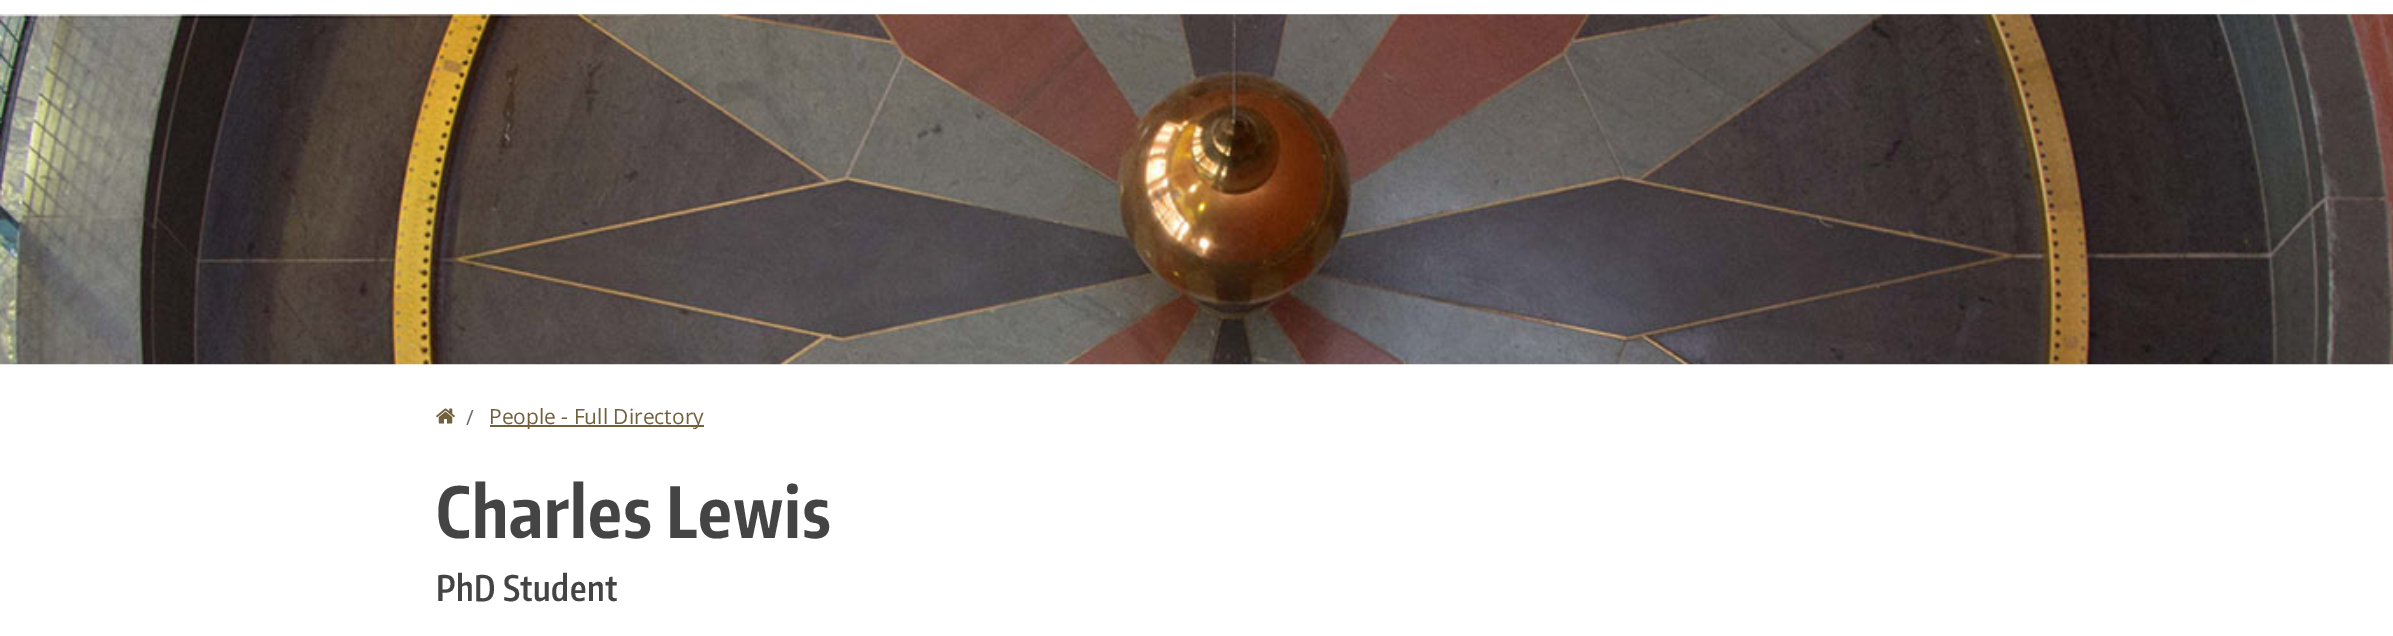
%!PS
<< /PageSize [2393 636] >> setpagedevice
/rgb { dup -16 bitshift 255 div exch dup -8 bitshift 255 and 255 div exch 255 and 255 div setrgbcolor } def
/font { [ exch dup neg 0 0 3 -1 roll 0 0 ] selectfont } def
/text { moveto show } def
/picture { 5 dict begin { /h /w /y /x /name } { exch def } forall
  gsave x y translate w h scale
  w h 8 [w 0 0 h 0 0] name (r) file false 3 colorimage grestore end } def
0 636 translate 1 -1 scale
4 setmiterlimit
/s1 { /OpenSans-Regular 21 font 16#6B6B6B rgb } def
/s2 { /OpenSans-Regular 21 font 16#71623D rgb } def
16#FFFFFF rgb
0 0 2393 636 rectfill
(pic1.raw) 0 14 2393 351 picture
(pic2.raw) 436 408 19 16 picture
s1
(/) 466 425 text
16#71623D rgb
490 425 214 2 rectfill
(People - Full Directory) 489 424 text
/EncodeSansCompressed-Bold 70 font
16#444444 rgb
436 538 moveto 0.9 0 (Charles Lewis) ashow
/EncodeSansCompressed-SemiBold 35 font
436 601 moveto 0.5 0 (PhD Student) ashow
showpage
